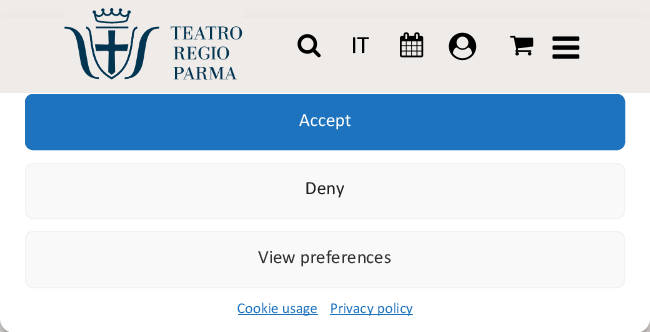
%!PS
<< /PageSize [650 332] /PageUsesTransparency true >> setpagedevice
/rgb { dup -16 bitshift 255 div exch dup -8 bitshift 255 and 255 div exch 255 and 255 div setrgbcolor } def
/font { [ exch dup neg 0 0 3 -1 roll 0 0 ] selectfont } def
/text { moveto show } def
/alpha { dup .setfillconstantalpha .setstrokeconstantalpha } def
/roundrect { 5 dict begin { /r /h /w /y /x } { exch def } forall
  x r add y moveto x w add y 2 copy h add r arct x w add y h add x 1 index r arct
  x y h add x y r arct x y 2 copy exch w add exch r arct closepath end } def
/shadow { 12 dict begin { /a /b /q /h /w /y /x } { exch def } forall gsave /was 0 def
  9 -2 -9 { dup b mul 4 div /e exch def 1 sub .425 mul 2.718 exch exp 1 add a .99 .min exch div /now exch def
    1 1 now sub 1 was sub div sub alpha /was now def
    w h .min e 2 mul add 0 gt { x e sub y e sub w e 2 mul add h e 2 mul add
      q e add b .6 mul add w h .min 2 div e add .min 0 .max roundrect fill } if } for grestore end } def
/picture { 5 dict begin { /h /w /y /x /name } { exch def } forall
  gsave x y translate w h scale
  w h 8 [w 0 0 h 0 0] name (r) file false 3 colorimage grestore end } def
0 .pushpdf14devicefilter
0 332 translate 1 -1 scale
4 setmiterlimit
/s1 { /Calibri-Regular 25 font 16#000000 rgb } def
/s2 { /Calibri-Regular 18.75 font 16#FFFFFF rgb } def
/s3 { /Calibri-Regular 18.75 font 16#222222 rgb } def
/s4 { /Calibri-Regular 18.75 font 16#333333 rgb } def
/s5 { /Calibri-Regular 15 font 16#1E73BE rgb } def
16#EFEBE8 rgb
0 0 650 332 rectfill
16#000000 rgb
0 33 650 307 15 4 0.23 shadow
0 38 650 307 15 12.5 0.19 shadow
16#FFFFFF rgb
0 25 650 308 15 roundrect fill
16#EFEBE8 rgb
0 18 650 75 rectfill
(pic1.raw) 64 8 179 72 picture
(pic2.raw) 297 34 24 24 picture
s1
(IT) 351 53 text
(pic3.raw) 400 32 24 26 picture
(pic4.raw) 448 32 29 29 picture
(pic5.raw) 510 35 24 21 picture
(pic6.raw) 552 36 28 23 picture
16#1E73BE rgb
25.5 94.5 599 55 7.5 roundrect gsave fill grestore
stroke
s2
(Accept) 299 126 text
16#F9F9F9 rgb
25.5 163.5 599 55 7.5 roundrect gsave fill grestore
16#F2F2F2 rgb
stroke
s3
(Deny) 305 194 text
16#F9F9F9 rgb
25.5 231.5 599 56 7.5 roundrect gsave fill grestore
16#F2F2F2 rgb
stroke
s4
(View preferences) 258 263 text
16#1E73BE rgb
238 314 80 1 rectfill
s5
(Cookie usage) 237 313 text
330 314 83 1 rectfill
(Privacy policy) 330 313 text
.poppdf14devicefilter showpage
